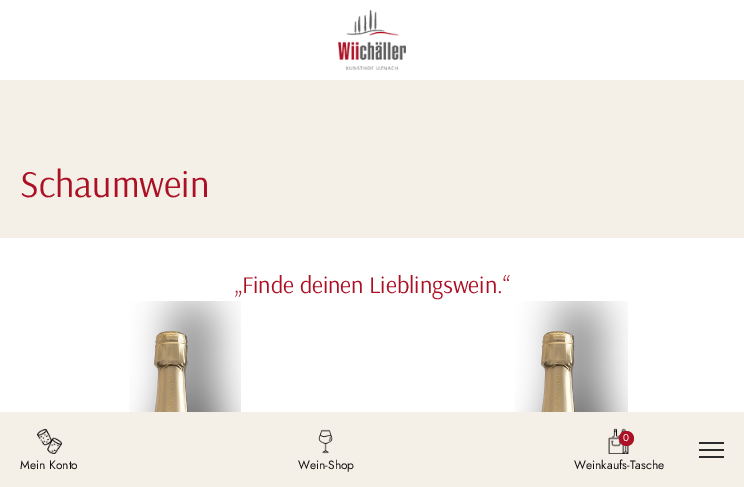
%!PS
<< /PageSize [744 487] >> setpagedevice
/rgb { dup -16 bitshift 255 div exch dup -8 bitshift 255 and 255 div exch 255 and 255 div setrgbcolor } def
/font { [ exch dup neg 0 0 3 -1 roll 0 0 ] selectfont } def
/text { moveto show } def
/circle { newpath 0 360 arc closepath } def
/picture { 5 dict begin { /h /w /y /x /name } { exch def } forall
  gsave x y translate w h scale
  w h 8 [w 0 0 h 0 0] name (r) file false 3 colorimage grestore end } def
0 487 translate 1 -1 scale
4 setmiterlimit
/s1 { /Arsenal-Regular 38 font 16#AC1024 rgb } def
/s2 { /Arsenal-Regular 24 font 16#AC1024 rgb } def
/s3 { /Jost-Regular 10 font 16#FFFFFF rgb } def
/s4 { /Jost-Regular 12 font 16#121212 rgb } def
16#FFFFFF rgb
0 0 744 487 rectfill
(pic1.raw) 338 10 68 60 picture
16#F4EFE7 rgb
0 80 744 158 rectfill
s1
(Schaumwein) 20 197 text
s2
(„Finde deinen Lieblingswein.“) 235 293 text
(pic2.raw) 129 301 112 111 picture
(pic3.raw) 515 301 113 111 picture
16#F4EFE7 rgb
0 412 744 75 rectfill
(pic4.raw) 608 428 21 26 picture
16#AC1024 rgb
626.5 438.5 7.5 circle fill
s3
(0) 623 441 text
s4
(Weinkaufs-Tasche) 574 469 text
16#2B2B2B rgb
699 442 25 2 rectfill
699 449 25 2 rectfill
699 456 25 2 rectfill
(pic5.raw) 37 429 25 25 picture
s4
(Mein Konto) 20 469 text
(pic6.raw) 318 429 15 25 picture
(Wein-Shop) 298 469 text
showpage
